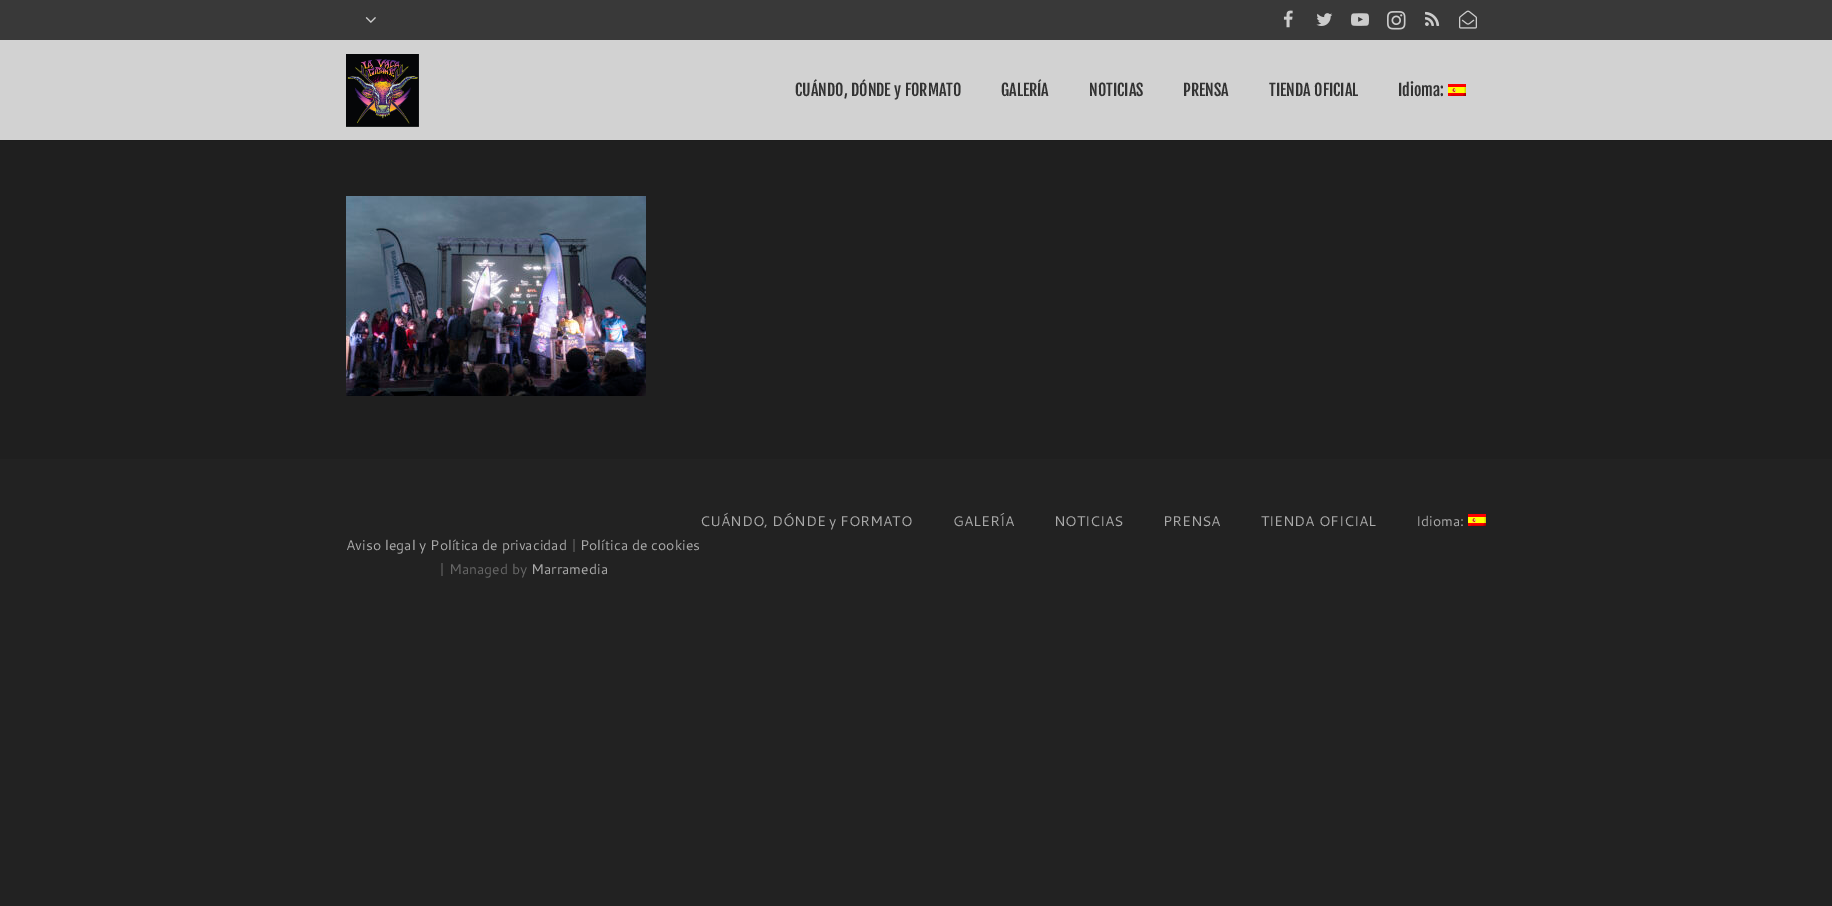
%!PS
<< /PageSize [1832 906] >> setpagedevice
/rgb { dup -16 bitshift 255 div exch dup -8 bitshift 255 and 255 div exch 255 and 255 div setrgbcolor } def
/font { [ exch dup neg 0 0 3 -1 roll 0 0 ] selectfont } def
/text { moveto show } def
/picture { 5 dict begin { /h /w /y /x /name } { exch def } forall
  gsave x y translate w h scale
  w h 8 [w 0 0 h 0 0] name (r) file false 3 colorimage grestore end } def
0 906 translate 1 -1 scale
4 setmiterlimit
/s1 { /FjallaOne-Regular 16 font 16#333333 rgb } def
/s2 { /Cantarell-Regular 14 font 16#AAAAAA rgb } def
/s3 { /Cantarell-Regular 14 font 16#666666 rgb } def
16#222222 rgb
0 0 1832 906 rectfill
16#1F1F1F rgb
0 141 1832 318 rectfill
16#393939 rgb
0 0 1832 40 rectfill
(pic1.raw) 365 17 11 6 picture
(pic2.raw) 1283 10 10 18 picture
(pic3.raw) 1316 13 17 13 picture
(pic4.raw) 1351 13 18 13 picture
(pic5.raw) 1387 11 19 19 picture
(pic6.raw) 1425 11 15 15 picture
(pic7.raw) 1459 10 18 19 picture
16#1D1D1D rgb
0 140 1832 1 rectfill
16#D2D2D2 rgb
0 40 1832 100 rectfill
(pic8.raw) 346 54 73 73 picture
s1
(CUÁNDO, DÓNDE y FORMATO) 795 96 text
(GALERÍA) 1001 96 text
(NOTICIAS) 1089 96 text
(PRENSA) 1183 96 text
(TIENDA OFICIAL) 1269 96 text
(Idioma:) 1398 96 text
(pic9.raw) 1448 84 18 12 picture
(pic10.raw) 346 196 300 200 picture
s2
(CUÁNDO, DÓNDE y FORMATO) 700 526 text
(GALERÍA) 953 526 text
(NOTICIAS) 1054 526 text
(PRENSA) 1163 526 text
(TIENDA OFICIAL) 1261 526 text
(Idioma:) 1416 526 text
(pic9.raw) 1468 514 18 12 picture
(Aviso legal y Política de privacidad) 346 550 text
s3
(|) 571 550 text
s2
(Política de cookies) 580 550 text
s3
(| Managed by) 439 574 text
s2
(Marramedia) 531 574 text
showpage
